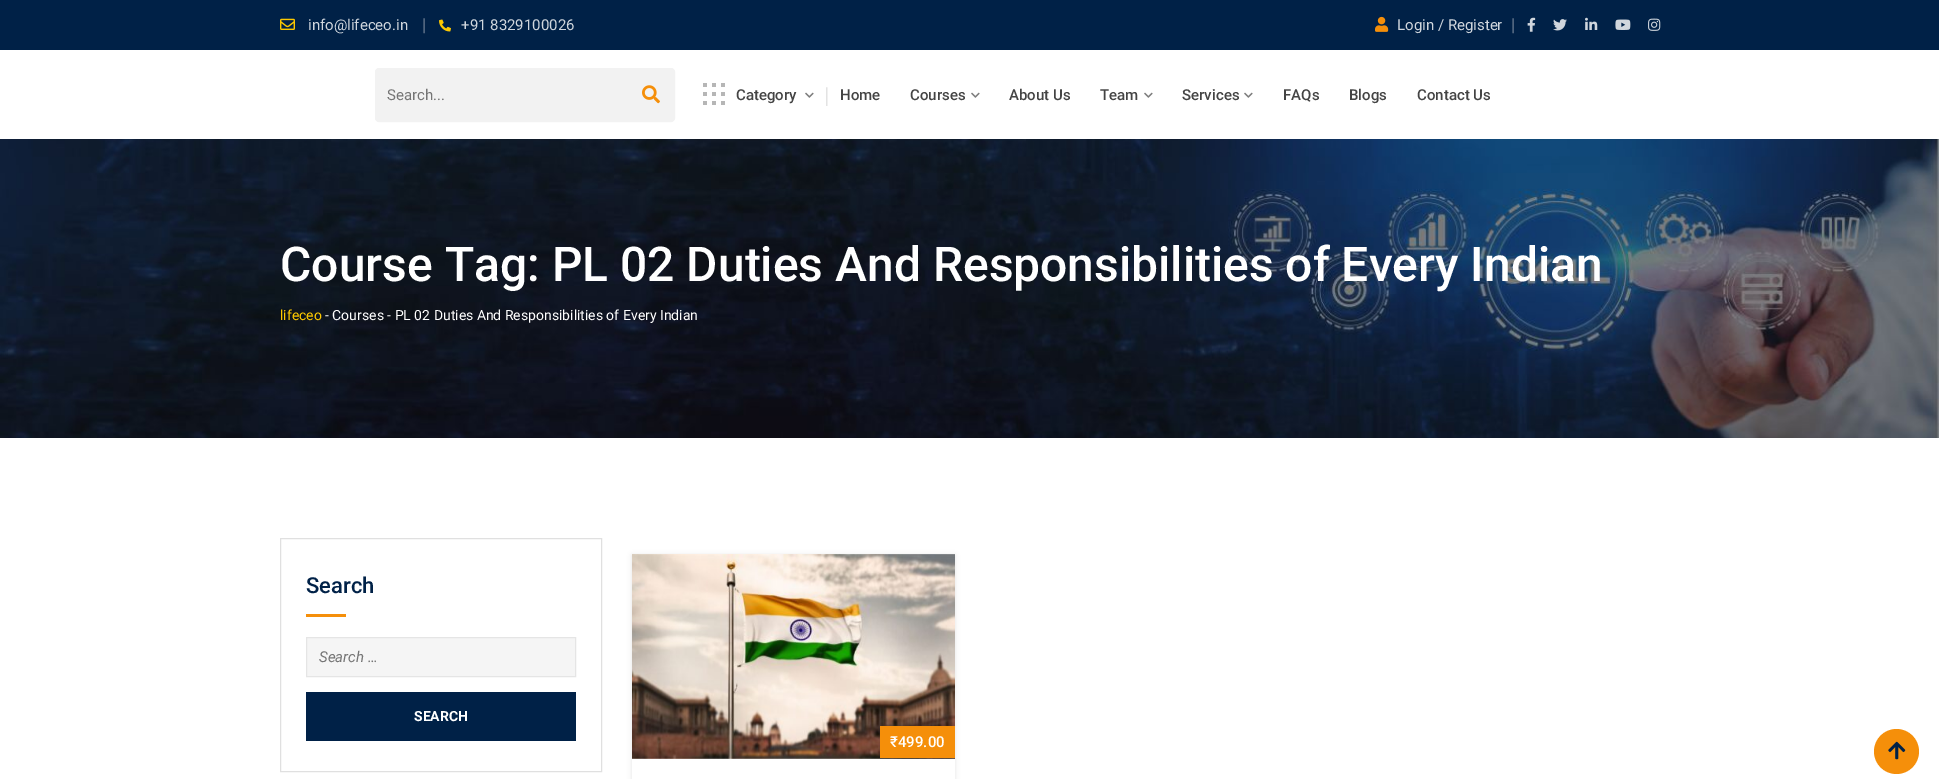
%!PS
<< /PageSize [1939 779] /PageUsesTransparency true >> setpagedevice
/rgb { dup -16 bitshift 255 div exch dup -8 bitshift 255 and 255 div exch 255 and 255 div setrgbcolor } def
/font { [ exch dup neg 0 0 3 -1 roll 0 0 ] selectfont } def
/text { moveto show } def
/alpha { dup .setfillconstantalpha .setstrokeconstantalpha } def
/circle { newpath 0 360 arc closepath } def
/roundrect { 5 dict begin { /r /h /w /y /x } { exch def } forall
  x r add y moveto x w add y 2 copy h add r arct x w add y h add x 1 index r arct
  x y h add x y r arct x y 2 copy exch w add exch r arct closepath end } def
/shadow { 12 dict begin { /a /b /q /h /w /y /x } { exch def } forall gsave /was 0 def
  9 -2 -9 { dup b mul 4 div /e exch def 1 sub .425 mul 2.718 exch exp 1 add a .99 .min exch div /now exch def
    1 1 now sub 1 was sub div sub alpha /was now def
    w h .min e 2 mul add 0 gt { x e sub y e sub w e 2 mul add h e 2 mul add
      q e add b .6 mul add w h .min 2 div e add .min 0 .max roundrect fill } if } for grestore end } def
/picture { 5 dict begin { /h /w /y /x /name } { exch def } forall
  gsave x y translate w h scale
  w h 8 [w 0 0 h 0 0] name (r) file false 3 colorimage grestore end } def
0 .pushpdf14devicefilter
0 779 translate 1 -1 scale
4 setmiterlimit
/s1 { /Roboto-Regular 15 font 16#D0D6DD rgb } def
/s2 { /Roboto-Regular 15 font 16#757575 rgb } def
/s3 { /Roboto-Medium 15 font 16#444444 rgb } def
/s4 { /Roboto-Medium 48 font 16#FFFFFF rgb } def
/s5 { /Roboto-Regular 14 font 16#FDC800 rgb } def
/s6 { /Roboto-Regular 14 font 16#FFFFFF rgb } def
/s7 { /Roboto-Medium 22 font 16#002147 rgb } def
/s8 { /Roboto-Italic 15 font 16#757575 rgb } def
/s9 { /Roboto-Bold 14 font 16#FFFFFF rgb } def
/s10 { /Roboto-Medium 15 font 16#FFFFFF rgb } def
16#FFFFFF rgb
0 0 1939 779 rectfill
16#002147 rgb
0 0 1939 50 rectfill
(pic1.raw) 280 18 15 12 picture
s1
(info@lifeceo.in) 308 30 text
/Roboto-Regular 18 font
16#6C7D92 rgb
422 31 moveto -1 0 (|) ashow
(pic2.raw) 439 19 12 13 picture
s1
(+91 8329100026) 461 30 text
(pic3.raw) 1375 16 14 16 picture
(Login / Register) 1397 30 text
/Roboto-Regular 18 font
16#6C7D92 rgb
1511 31 moveto -1 0 (|) ashow
(pic4.raw) 1527 17 9 15 picture
(pic5.raw) 1553 19 14 12 picture
(pic6.raw) 1585 17 13 13 picture
(pic7.raw) 1615 19 16 11 picture
(pic8.raw) 1648 18 13 13 picture
16#F2F2F2 rgb
375.5 68.5 299 53 3.5 roundrect gsave fill grestore
stroke
s2
(Search...) 387 100 text
(pic9.raw) 642 85 18 19 picture
(pic10.raw) 703 83 22 22 picture
s3
(Category) 736 100 text
(pic11.raw) 805 92 9 6 picture
/Roboto-Regular 22 font
16#E3E3E3 rgb
824 103 moveto -2 0 (|) ashow
s3
(Home) 840 100 text
(Courses) 910 100 text
(pic11.raw) 971 92 9 6 picture
(About Us) 1009 100 text
(Team) 1100 100 text
(pic11.raw) 1144 92 9 6 picture
(Services) 1182 100 text
(pic11.raw) 1244 92 9 6 picture
(FAQs) 1283 100 text
(Blogs) 1349 100 text
(Contact Us) 1417 100 text
(pic12.raw) 0 139 1939 299 picture
s4
(Course Tag: PL 02 Duties And Responsibilities of Every Indian) 280 281 text
s5
(lifeceo) 280 320 text
s6
(- Courses - PL 02 Duties And Responsibilities of Every Indian) 325 320 text
16#E0E0E0 rgb
280.5 538.5 321 233 rectstroke
s7
(Search) 306 593 text
16#F58F0A rgb
306 614 40 3 rectfill
16#F5F5F5 rgb
306.5 637.5 moveto 575.5 637.5 lineto 575.5 676.5 lineto 306.5 676.5 lineto closepath gsave fill grestore
16#E5E5E5 rgb
stroke
s8
(Search …) 319 662 text
16#002147 rgb
306 692 270 49 rectfill
s9
(SEARCH) 414 721 text
gsave
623 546 moveto 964 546 lineto 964 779 lineto 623 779 lineto closepath 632 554 moveto 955 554 lineto 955 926 lineto 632 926 lineto closepath eoclip newpath
16#000000 rgb
632 555 323 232 0 2.5 0.1 shadow
grestore
(pic13.raw) 632 554 323 205 picture
16#F58F0A rgb
880 726 75 32 rectfill
s10
(₹499.00) 890 747 text
16#F58F0A rgb
1896.5 751.5 22.5 circle fill
(pic14.raw) 1888 741 18 19 picture
.poppdf14devicefilter showpage
